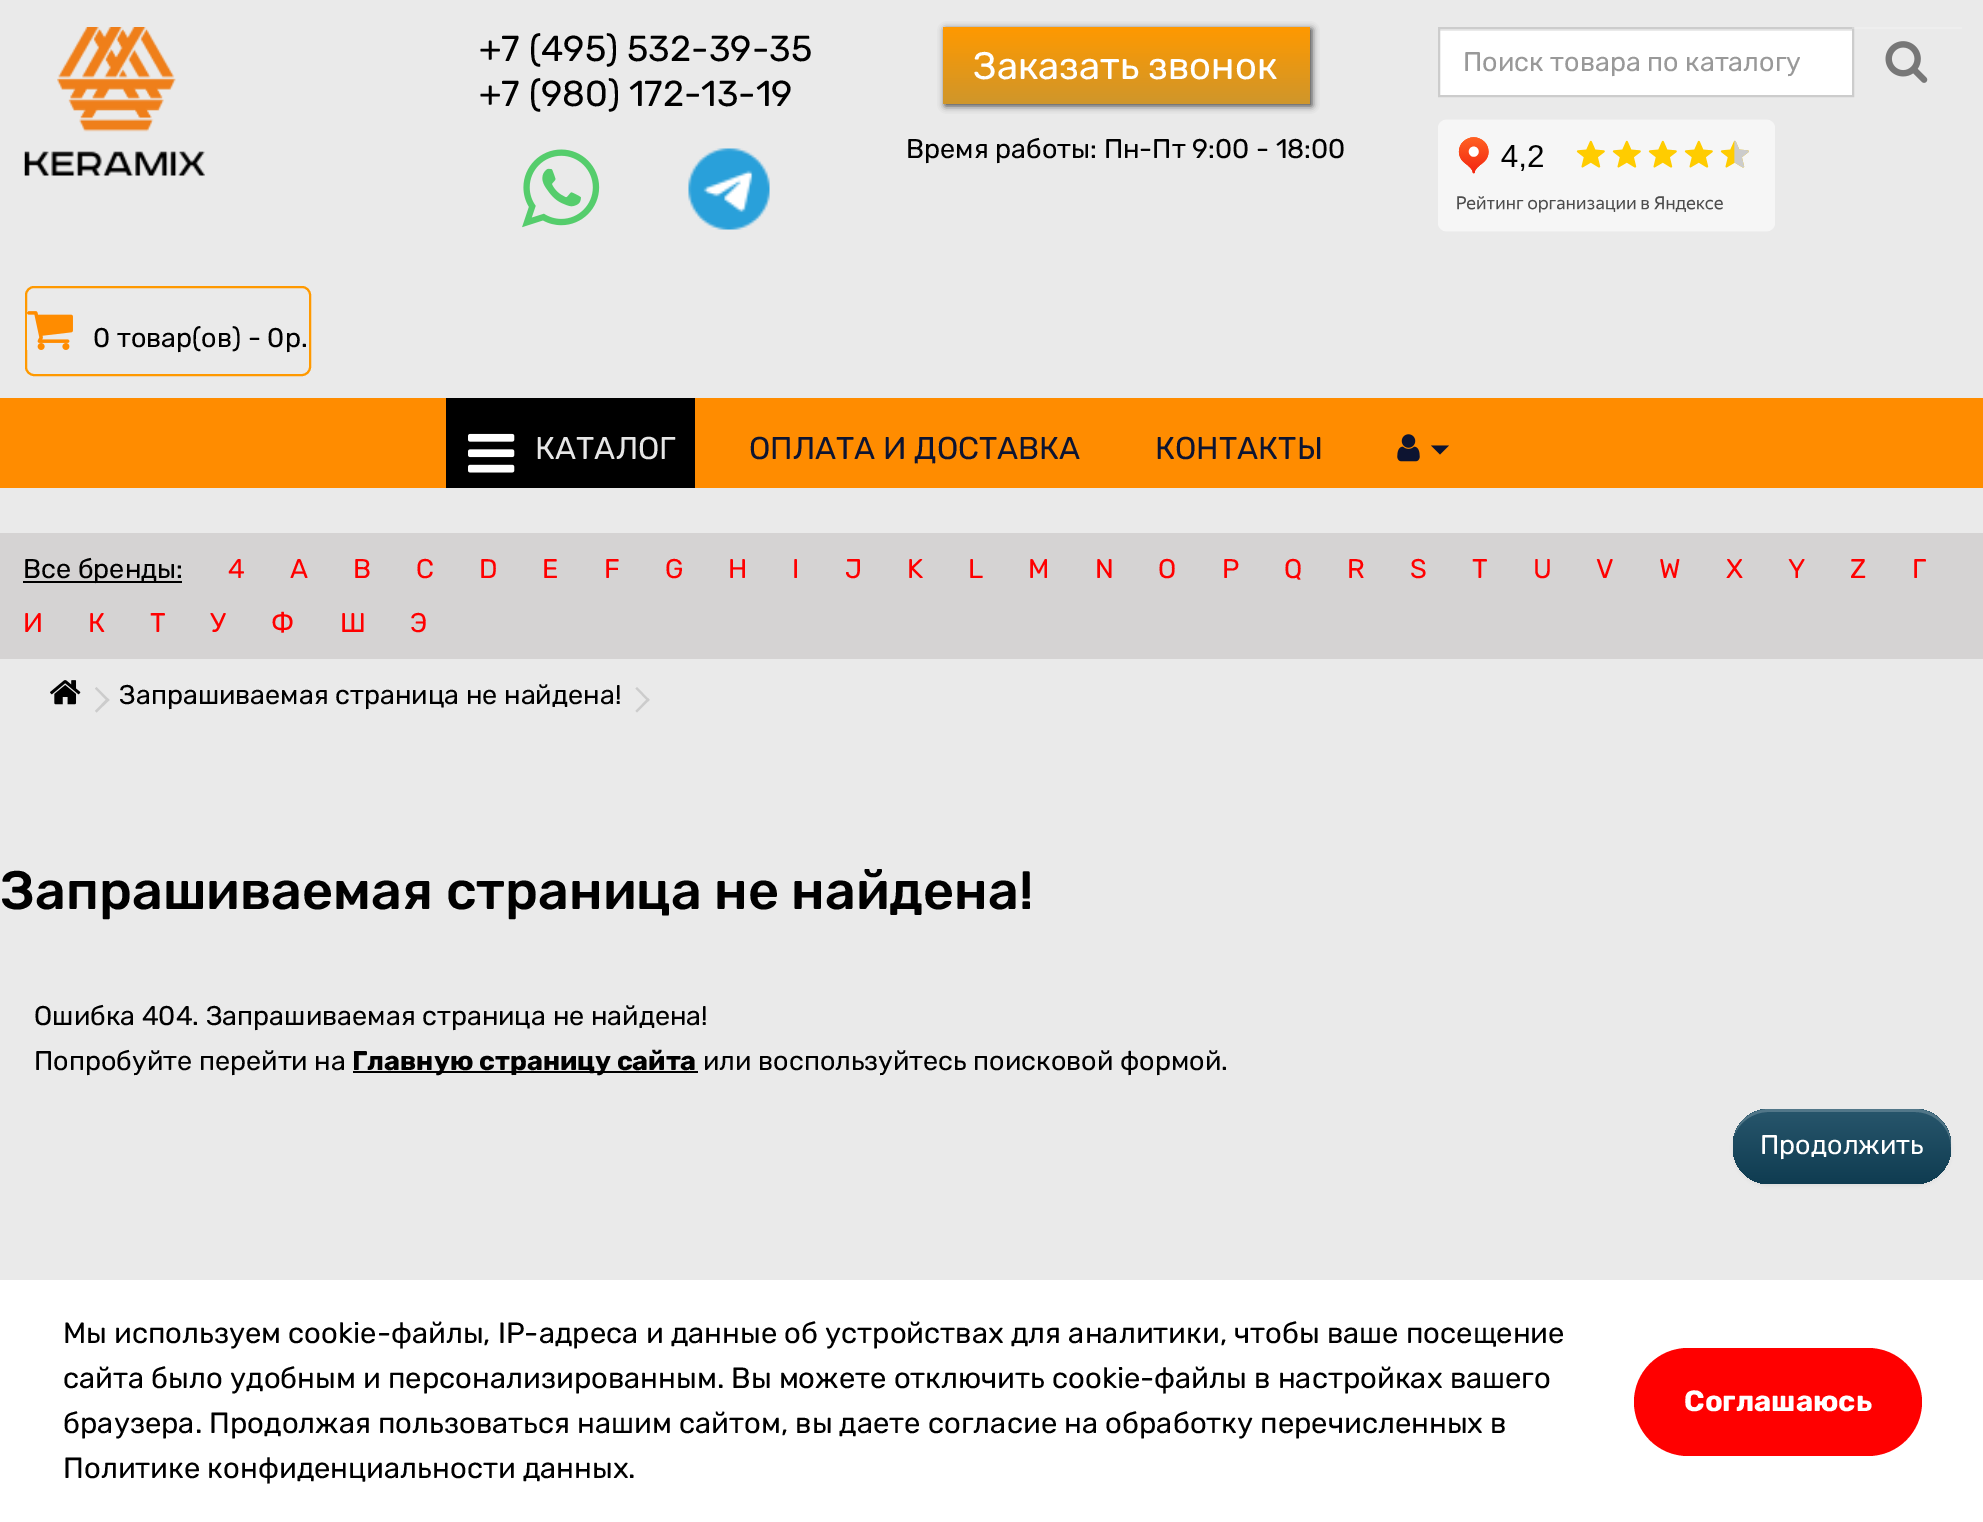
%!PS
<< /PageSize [1983 1522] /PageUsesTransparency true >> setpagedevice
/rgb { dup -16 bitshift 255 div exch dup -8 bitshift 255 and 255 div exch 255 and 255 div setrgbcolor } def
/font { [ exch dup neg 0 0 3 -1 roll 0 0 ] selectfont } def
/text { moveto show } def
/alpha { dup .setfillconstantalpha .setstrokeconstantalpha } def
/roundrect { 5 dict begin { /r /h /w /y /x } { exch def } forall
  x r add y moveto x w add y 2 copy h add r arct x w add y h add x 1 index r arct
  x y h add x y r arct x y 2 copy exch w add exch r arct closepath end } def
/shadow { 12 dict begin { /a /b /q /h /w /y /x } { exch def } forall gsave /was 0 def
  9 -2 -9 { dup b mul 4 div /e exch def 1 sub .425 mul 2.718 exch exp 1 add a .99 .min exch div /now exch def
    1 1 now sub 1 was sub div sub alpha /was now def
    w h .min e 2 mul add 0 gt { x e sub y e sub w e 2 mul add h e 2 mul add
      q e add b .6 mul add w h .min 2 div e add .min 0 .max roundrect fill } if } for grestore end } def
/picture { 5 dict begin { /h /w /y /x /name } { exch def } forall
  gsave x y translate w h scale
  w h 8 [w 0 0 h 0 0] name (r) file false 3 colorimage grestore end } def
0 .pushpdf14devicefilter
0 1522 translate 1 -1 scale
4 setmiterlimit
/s1 { /Rubik-Regular 36 font 16#000000 rgb } def
/s2 { /Rubik-Regular 38.25 font 16#FFFFFF rgb } def
/s3 { /Rubik-Regular 27 font 16#000000 rgb } def
/s4 { /Rubik-Regular 27 font 16#999999 rgb } def
/s5 { /Rubik-Regular 31.5 font 16#E6E6E6 rgb } def
/s6 { /Rubik-Regular 31.5 font 16#0D1431 rgb } def
/s7 { /Rubik-Regular 27 font 16#FF0000 rgb } def
/s8 { /Rubik-Medium 54 font 16#000000 rgb } def
/s9 { /Rubik-Bold 27 font 16#000000 rgb } def
/s10 { /Rubik-Regular 27 font 16#FFFFFF rgb } def
/s11 { /Rubik-Regular 29.25 font 16#000000 rgb } def
/s12 { /Rubik-Bold 29.25 font 16#FFFFFF rgb } def
16#EAEAEA rgb
0 0 1983 1522 rectfill
(pic1.raw) 24 27 181 149 picture
s1
(+7 \(495\) 532-39-35) 479 61 text
(+7 \(980\) 172-13-19) 479 106 text
(pic2.raw) 522 149 78 79 picture
(pic3.raw) 688 148 82 82 picture
16#444444 rgb
945 29 367 77 0 3.5 1 shadow
gsave 943 27 moveto 1310 27 lineto 1310 104 lineto 943 104 lineto closepath clip newpath
<< /ShadingType 2 /ColorSpace /DeviceRGB /Coords [1126 27 1126 104] /Extend [true true] /Function << /FunctionType 2 /Domain [0 1] /C0 [1 0.6 0] /C1 [0.812 0.588 0.169] /N 1 >> >> shfill grestore
s2
(Заказать звонок) 973 79 text
s3
(Время работы: Пн-Пт 9:00 - 18:00) 906 158 text
16#FFFFFF rgb
1440 31 412 64 rectfill
16#CCCCCC rgb
2 setlinewidth
1439 28 414 68 rectstroke
s4
(Поиск товара по каталогу) 1463 71 text
0.2 alpha
16#FFFFFF rgb
1852 27 110 2 rectfill
1 alpha
(pic4.raw) 1885 41 43 42 picture
(pic5.raw) 1438 119 337 113 picture
16#FF9900 rgb
26 287 284 88 8 roundrect stroke
(pic6.raw) 27 311 46 39 picture
s3
(0 товар\(ов\) - 0р.) 93 347 text
16#FF8C00 rgb
0 398 1983 90 rectfill
16#000000 rgb
446 398 249 90 rectfill
(pic7.raw) 468 433 47 40 picture
s5
(КАТАЛОГ) 535 459 text
s6
(ОПЛАТА И ДОСТАВКА) 749 459 text
(КОНТАКТЫ) 1155 459 text
(pic8.raw) 1397 434 23 28 picture
1431 445.5 moveto 1449 445.5 lineto 1440 454.5 lineto closepath fill
16#D5D3D3 rgb
0 533 1983 126 rectfill
16#000000 rgb
23 581 159 2 rectfill
s3
(Все бренды:) 23 578 text
s7
(4) 228 578 text
(A) 290 578 text
(B) 353 578 text
(C) 416 578 text
(D) 479 578 text
(E) 542 578 text
(F) 604 578 text
(G) 665 578 text
(H) 728 578 text
(I) 792 578 text
(J) 845 578 text
(K) 907 578 text
(L) 968 578 text
(M) 1028 578 text
(N) 1095 578 text
(O) 1158 578 text
(P) 1222 578 text
(Q) 1284 578 text
(R) 1347 578 text
(S) 1410 578 text
(T) 1472 578 text
(U) 1533 578 text
(V) 1596 578 text
(W) 1659 578 text
(X) 1726 578 text
(Y) 1788 578 text
(Z) 1850 578 text
(Г) 1912 578 text
(И) 23 632 text
(К) 88 632 text
(Т) 150 632 text
(У) 210 632 text
(Ф) 271 632 text
(Ш) 340 632 text
(Э) 410 632 text
(pic9.raw) 50 680 31 25 picture
16#CCCCCC rgb
95 688.5 moveto 96.5 687 lineto 109.5 700 lineto 107.5 701.5 lineto closepath fill
95 711 moveto 107.5 698 lineto 109.5 700 lineto 96.5 712.5 lineto closepath fill
s3
(Запрашиваемая страница не найдена!) 119 704 text
16#CCCCCC rgb
635.5 688.5 moveto 637 687 lineto 649.5 700 lineto 648 701.5 lineto closepath fill
635.5 711 moveto 648 698 lineto 649.5 700 lineto 637 712.5 lineto closepath fill
s8
(Запрашиваемая страница не найдена!) 0 909 text
s3
(Ошибка 404. Запрашиваемая страница не найдена!) 34 1025 text
(Попробуйте перейти на) 34 1070 text
353 1071 345 2 rectfill
s9
(Главную страницу сайта) 352 1070 text
s3
(или воспользуйтесь поисковой формой.) 703 1070 text
1733 1112 218 74 36 2 0.05 shadow
gsave 1733 1109 218 75 36 roundrect clip newpath
<< /ShadingType 2 /ColorSpace /DeviceRGB /Coords [1842 1109 1842 1184] /Extend [true true] /Function << /FunctionType 2 /Domain [0 1] /C0 [0.157 0.337 0.424] /C1 [0.059 0.235 0.318] /N 1 >> >> shfill grestore
0.2 alpha
16#FFFFFF rgb
1768 1112 moveto 1915 1112 lineto 1935 1112 1951 1128 1951 1148 curveto 1951 1145 lineto 1951 1125 1935 1109 1915 1109 curveto 1769 1109 lineto 1752 1109 1738 1120 1734 1136 curveto 1739 1122 1753 1112 1768 1112 curveto closepath fill
1 alpha
(Продолжить) 1760 1154 text
0 1280 1983 242 rectfill
s11
(Мы используем cookie-файлы, IP-адреса и данные об устройствах для аналитики, чтобы ваше посещение) 63 1343 text
(сайта было удобным и персонализированным. Вы можете отключить cookie-файлы в настройках вашего) 63 1388 text
(браузера. Продолжая пользоваться нашим сайтом, вы даете согласие на обработку перечисленных в) 63 1433 text
(Политике конфиденциальности данных.) 63 1478 text
16#FF0000 rgb
1634 1348 288 108 54 roundrect fill
s12
(Соглашаюсь) 1684 1411 text
.poppdf14devicefilter showpage
